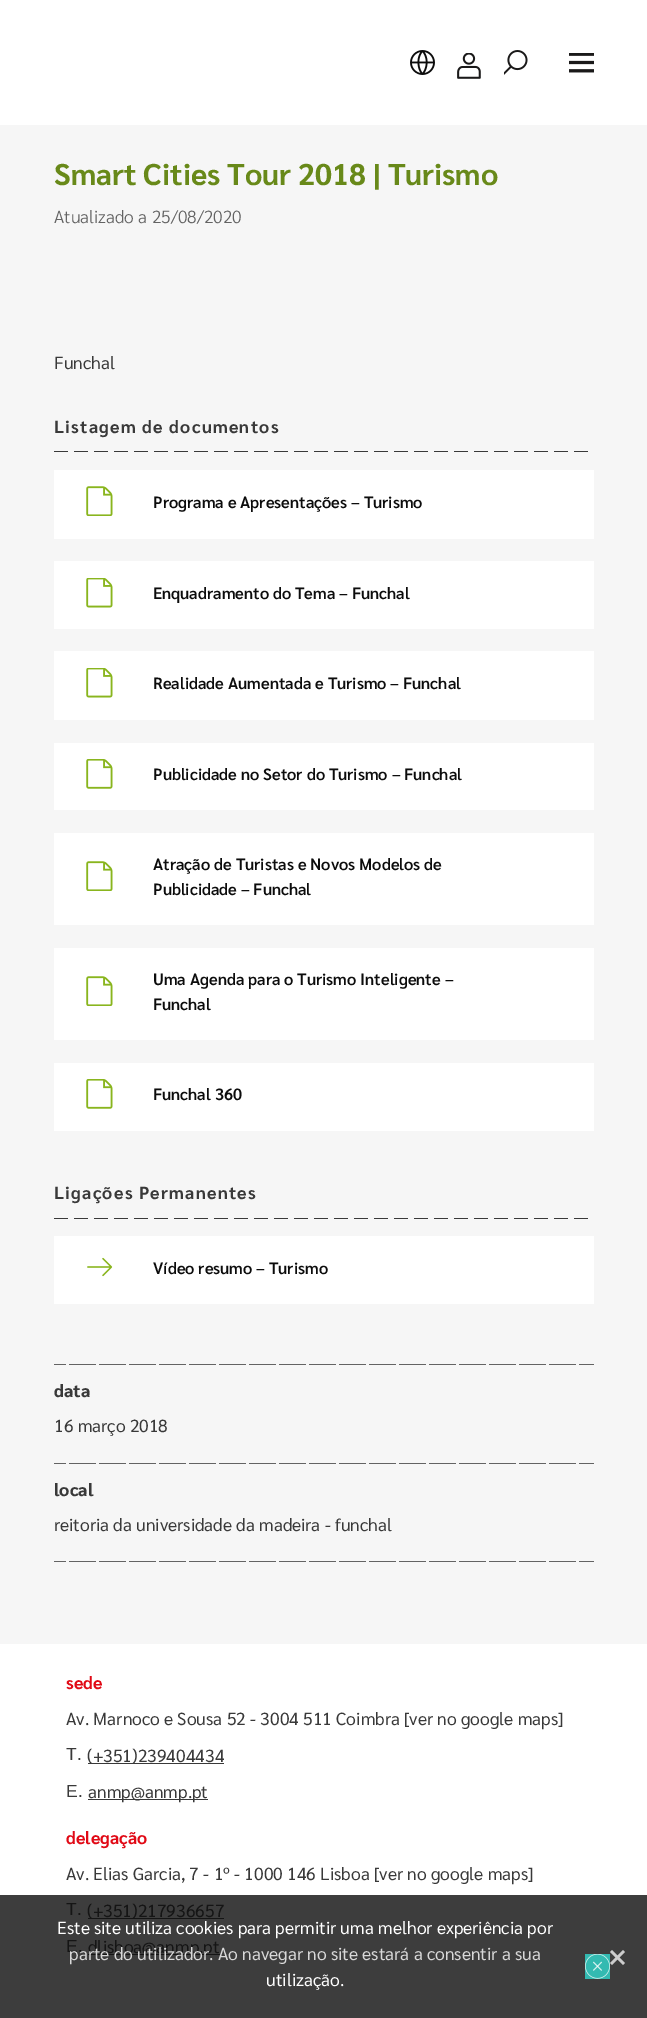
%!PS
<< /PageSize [647 2018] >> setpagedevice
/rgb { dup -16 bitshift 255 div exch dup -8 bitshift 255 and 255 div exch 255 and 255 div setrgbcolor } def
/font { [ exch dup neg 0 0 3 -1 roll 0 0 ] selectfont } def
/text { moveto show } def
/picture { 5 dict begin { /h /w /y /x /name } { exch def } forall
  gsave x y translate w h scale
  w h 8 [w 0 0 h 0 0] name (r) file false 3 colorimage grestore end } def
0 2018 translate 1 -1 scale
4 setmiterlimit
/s1 { /Sarabun-Bold 30 font 16#688919 rgb } def
/s2 { /Sarabun-Light 17.5 font 16#636363 rgb } def
/s3 { /Sarabun-Regular 17.5 font 16#393939 rgb } def
/s4 { /Sarabun-SemiBold 16.25 font 16#0C0C0C rgb } def
/s5 { /Sarabun-ExtraBold 17.5 font 16#393939 rgb } def
/s6 { /Sarabun-Bold 17.5 font 16#E10915 rgb } def
/s7 { /LiberationSans-Regular 17.5 font 16#393939 rgb } def
/s8 { /LiberationSans-Regular 17.5 font 16#151515 rgb } def
/s9 { /Sarabun-Regular 17.5 font 16#151515 rgb } def
/s10 { /Sarabun-Regular 17.5 font 16#FFFFFF rgb } def
/s11 { /Sarabun-Regular 17.5 font 16#D8D8D8 rgb } def
16#FFFFFF rgb
0 0 647 2018 rectfill
16#3D3D3D rgb
0 1895 647 123 rectfill
(pic1.raw) 410 50 25 25 picture
(pic2.raw) 457 53 24 26 picture
(pic3.raw) 504 50 24 25 picture
(pic4.raw) 569 53 25 20 picture
16#F6F6F6 rgb
0 125 647 1519 rectfill
s1
(Smart Cities Tour 2018 | Turismo) 54 185 text
s2
(Atualizado a 25/08/2020) 54 223 text
s3
(Funchal) 54 369 text
(pic5.raw) 54 451 534 1 picture
/Sarabun-Bold 17.5 font
54 433 moveto 1.25 0 (Listagem de documentos) ashow
16#FFFFFF rgb
54 470 540 69 rectfill
(pic6.raw) 86 486 27 30 picture
s4
(Programa e Apresentações – Turismo) 153 508 text
16#FFFFFF rgb
54 561 540 68 rectfill
(pic7.raw) 86 578 27 30 picture
s4
(Enquadramento do Tema – Funchal) 153 599 text
16#FFFFFF rgb
54 651 540 69 rectfill
(pic7.raw) 86 668 27 30 picture
s4
(Realidade Aumentada e Turismo – Funchal) 153 689 text
16#FFFFFF rgb
54 743 540 67 rectfill
(pic8.raw) 86 759 27 30 picture
s4
(Publicidade no Setor do Turismo – Funchal) 153 780 text
16#FFFFFF rgb
54 833 540 92 rectfill
(pic6.raw) 86 861 27 30 picture
s4
(Atração de Turistas e Novos Modelos de) 153 870 text
(Publicidade – Funchal) 153 895 text
16#FFFFFF rgb
54 948 540 92 rectfill
(pic6.raw) 86 976 27 30 picture
s4
(Uma Agenda para o Turismo Inteligente –) 153 985 text
(Funchal) 153 1010 text
16#FFFFFF rgb
54 1063 540 68 rectfill
(pic8.raw) 86 1079 27 30 picture
s4
(Funchal 360) 153 1100 text
(pic5.raw) 54 1218 534 1 picture
/Sarabun-Bold 17.5 font
16#393939 rgb
54 1199 moveto 1.25 0 (Ligações Permanentes) ashow
16#FFFFFF rgb
54 1236 540 68 rectfill
(pic9.raw) 87 1257 26 20 picture
s4
(Vídeo resumo – Turismo) 153 1274 text
16#636363 rgb
54 1364 12 1 rectfill
69 1364 27 1 rectfill
99 1364 27 1 rectfill
129 1364 27 1 rectfill
159 1364 27 1 rectfill
189 1364 27 1 rectfill
219 1364 27 1 rectfill
249 1364 27 1 rectfill
279 1364 27 1 rectfill
309 1364 27 1 rectfill
339 1364 27 1 rectfill
369 1364 27 1 rectfill
399 1364 27 1 rectfill
429 1364 27 1 rectfill
459 1364 27 1 rectfill
489 1364 27 1 rectfill
519 1364 27 1 rectfill
549 1364 27 1 rectfill
579 1364 15 1 rectfill
54 1463 12 1 rectfill
69 1463 27 1 rectfill
99 1463 27 1 rectfill
129 1463 27 1 rectfill
159 1463 27 1 rectfill
189 1463 27 1 rectfill
219 1463 27 1 rectfill
249 1463 27 1 rectfill
279 1463 27 1 rectfill
309 1463 27 1 rectfill
339 1463 27 1 rectfill
369 1463 27 1 rectfill
399 1463 27 1 rectfill
429 1463 27 1 rectfill
459 1463 27 1 rectfill
489 1463 27 1 rectfill
519 1463 27 1 rectfill
549 1463 27 1 rectfill
579 1463 15 1 rectfill
s5
(data) 54 1397 text
s3
(16 março 2018) 54 1432 text
16#636363 rgb
54 1561 12 1 rectfill
69 1561 27 1 rectfill
99 1561 27 1 rectfill
129 1561 27 1 rectfill
159 1561 27 1 rectfill
189 1561 27 1 rectfill
219 1561 27 1 rectfill
249 1561 27 1 rectfill
279 1561 27 1 rectfill
309 1561 27 1 rectfill
339 1561 27 1 rectfill
369 1561 27 1 rectfill
399 1561 27 1 rectfill
429 1561 27 1 rectfill
459 1561 27 1 rectfill
489 1561 27 1 rectfill
519 1561 27 1 rectfill
549 1561 27 1 rectfill
579 1561 15 1 rectfill
s5
(local) 54 1496 text
s3
(reitoria da universidade da madeira - funchal) 54 1531 text
s6
(sede) 66 1689 text
s3
(Av. Marnoco e Sousa 52 - 3004 511 Coimbra [ver no google maps]) 66 1725 text
s7
(T.) 66 1760 text
88 1763 136 1 rectfill
s3
(\(+351\)239404434) 87 1762 text
s7
(E.) 66 1797 text
88 1799 120 1 rectfill
s3
(anmp@anmp.pt) 88 1798 text
s6
(delegação) 66 1844 text
s3
(Av. Elias Garcia, 7 - 1º - 1000 146 Lisboa [ver no google maps]) 66 1880 text
s8
(T.) 66 1915 text
88 1918 136 1 rectfill
s9
(\(+351\)217936657) 87 1917 text
s8
(E.) 66 1952 text
88 1954 132 1 rectfill
s9
(dlisboa@anmp.pt) 88 1953 text
s10
(Este site utiliza cookies para permitir uma melhor experiência por) 57 1934 text
s11
(parte do utilizador. Ao navegar no site estará a consentir a sua) 69 1960 text
s10
(utilização.) 266 1986 text
16#33BAB1 rgb
585 1954 25 25 rectfill
(pic10.raw) 585 1954 25 25 picture
16#CCCCCC rgb
623 1950 moveto 625 1952 lineto 612 1965 lineto 610 1963 lineto closepath fill
610 1952 moveto 612 1950 lineto 625 1963 lineto 623 1965 lineto closepath fill
showpage
